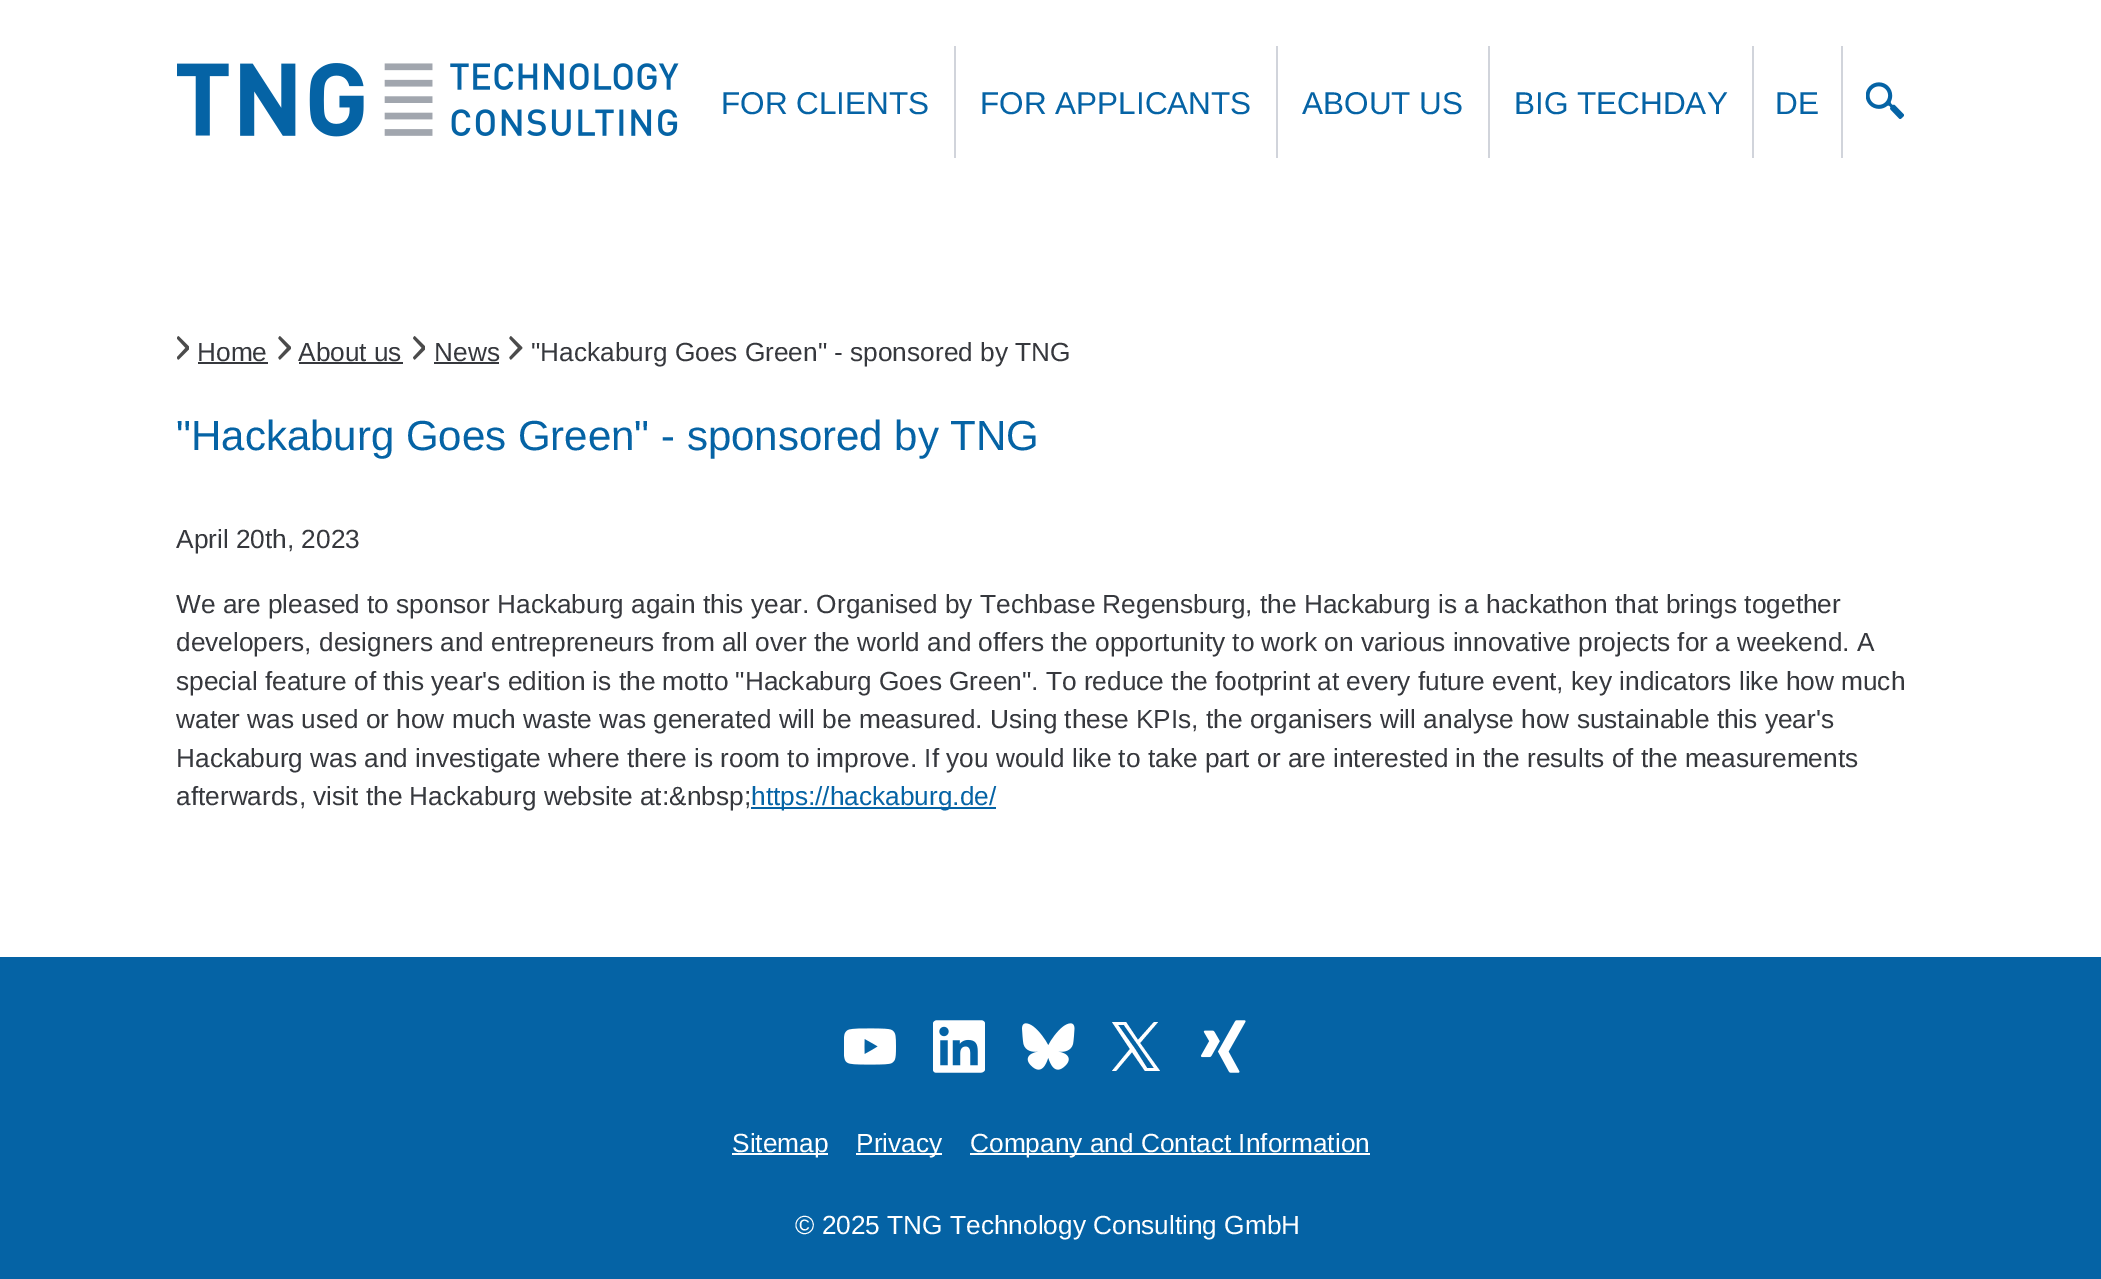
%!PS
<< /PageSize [2101 1279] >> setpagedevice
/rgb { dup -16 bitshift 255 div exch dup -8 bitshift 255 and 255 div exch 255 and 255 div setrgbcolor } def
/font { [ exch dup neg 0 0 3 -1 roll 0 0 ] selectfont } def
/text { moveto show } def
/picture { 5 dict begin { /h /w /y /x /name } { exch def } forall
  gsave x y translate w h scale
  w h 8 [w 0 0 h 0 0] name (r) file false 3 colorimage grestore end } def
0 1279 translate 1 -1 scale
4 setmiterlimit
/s1 { /LiberationSans-Regular 31.5 font 16#0563A5 rgb } def
/s2 { /LiberationSans-Regular 26.25 font 16#36383D rgb } def
/s3 { /LiberationSans-Regular 42 font 16#0563A5 rgb } def
/s4 { /LiberationSans-Regular 26.25 font 16#0563A5 rgb } def
/s5 { /LiberationSans-Regular 26.25 font 16#FFFFFF rgb } def
16#FFFFFF rgb
0 0 2101 1279 rectfill
(pic1.raw) 177 63 502 74 picture
16#D1D4DB rgb
954 46 2 112 rectfill
s1
(FOR CLIENTS) 721 114 text
16#D1D4DB rgb
1276 46 2 112 rectfill
s1
(FOR APPLICANTS) 980 114 text
16#D1D4DB rgb
1488 46 2 112 rectfill
s1
(ABOUT US) 1302 114 text
16#D1D4DB rgb
1752 46 2 112 rectfill
s1
(BIG TECHDAY) 1514 114 text
16#D1D4DB rgb
1841 46 2 112 rectfill
s1
(DE) 1775 114 text
(pic2.raw) 1866 82 38 37 picture
(pic3.raw) 177 336 12 24 picture
s2
(Home) 197 361 text
198 362 70 2 rectfill
(pic4.raw) 278 336 13 24 picture
(About us) 298 361 text
299 362 104 2 rectfill
(pic5.raw) 413 336 12 24 picture
(News) 434 361 text
434 362 65 2 rectfill
(pic6.raw) 509 336 14 24 picture
("Hackaburg Goes Green" - sponsored by TNG) 531 361 text
s3
("Hackaburg Goes Green" - sponsored by TNG) 176 450 text
s2
(April 20th, 2023) 176 548 text
(We are pleased to sponsor Hackaburg again this year. Organised by Techbase Regensburg, the Hackaburg is a hackathon that brings together) 176 613 text
(developers, designers and entrepreneurs from all over the world and offers the opportunity to work on various innovative projects for a weekend. A) 176 651 text
(special feature of this year's edition is the motto "Hackaburg Goes Green". To reduce the footprint at every future event, key indicators like how much) 176 690 text
(water was used or how much waste was generated will be measured. Using these KPIs, the organisers will analyse how sustainable this year's) 176 728 text
(Hackaburg was and investigate where there is room to improve. If you would like to take part or are interested in the results of the measurements) 176 767 text
(afterwards, visit the Hackaburg website at:&nbsp;) 176 805 text
16#0563A5 rgb
751 807 245 2 rectfill
(https://hackaburg.de/) 751 805 text
0 957 2101 322 rectfill
(pic7.raw) 844 1028 52 37 picture
(pic8.raw) 933 1020 52 53 picture
(pic9.raw) 1022 1023 53 47 picture
16#FFFFFF rgb
1140 1043 moveto 1158 1022 lineto 1154 1022 lineto 1138 1040 lineto 1126 1022 lineto 1112 1022 lineto 1130 1049 lineto 1112 1071 lineto 1116 1071 lineto 1132 1052 lineto 1145 1071 lineto 1160 1071 lineto closepath 1135 1049 moveto 1118 1025 lineto 1124 1025 lineto 1154 1068 lineto 1147 1068 lineto closepath fill
(pic10.raw) 1201 1020 45 53 picture
732 1153 96 2 rectfill
(Sitemap) 732 1152 text
856 1153 86 2 rectfill
(Privacy) 856 1152 text
970 1153 400 2 rectfill
(Company and Contact Information) 970 1152 text
(© 2025 TNG Technology Consulting GmbH) 795 1234 text
showpage
